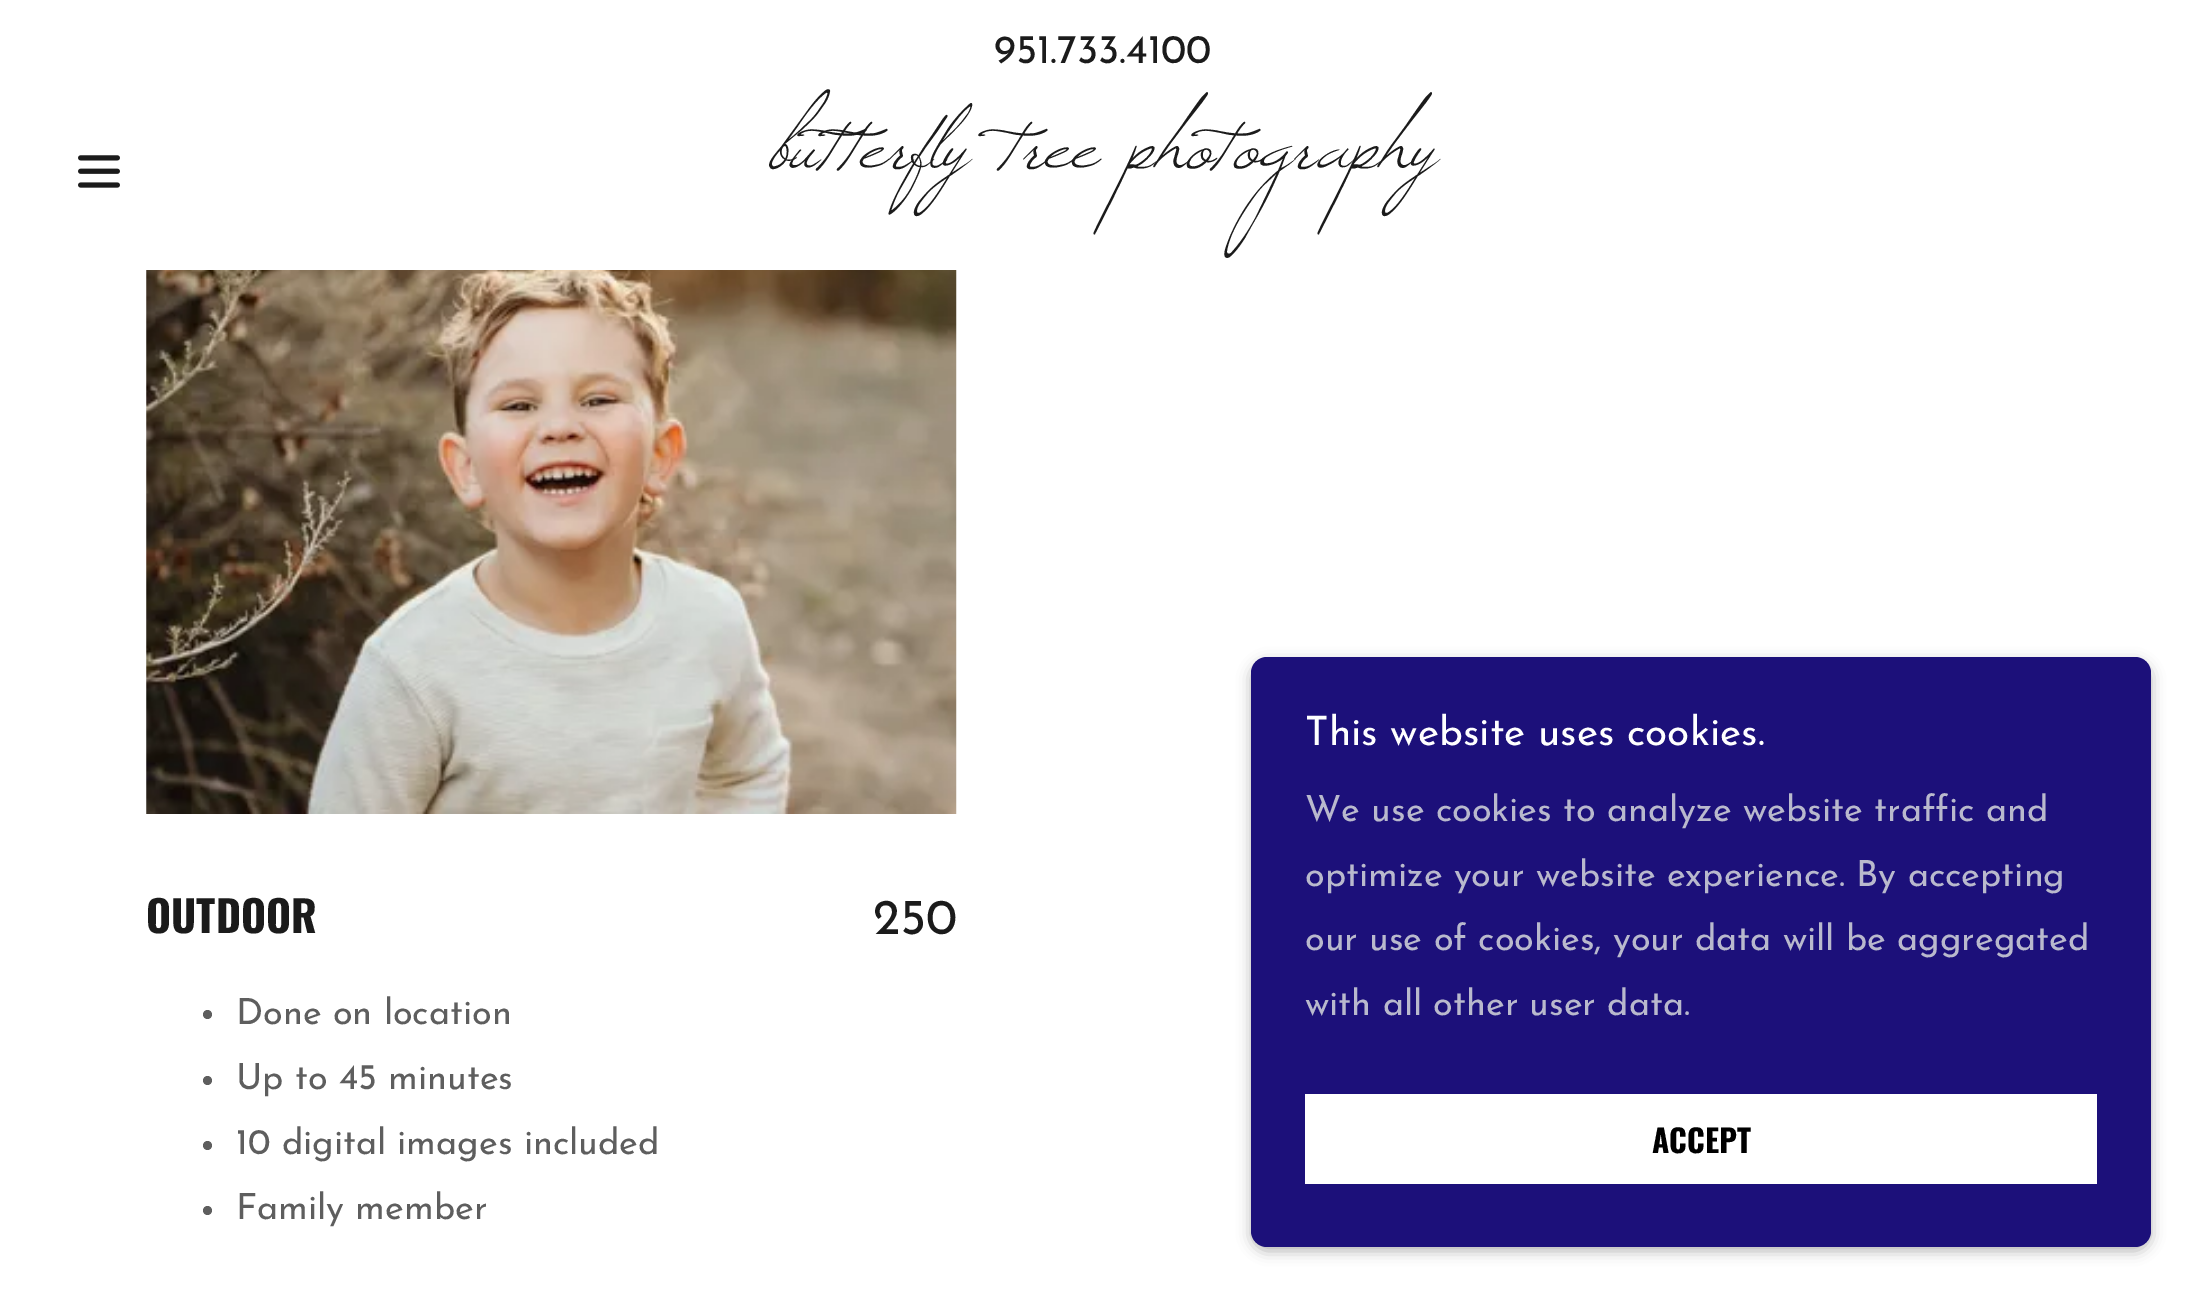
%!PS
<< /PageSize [2205 1300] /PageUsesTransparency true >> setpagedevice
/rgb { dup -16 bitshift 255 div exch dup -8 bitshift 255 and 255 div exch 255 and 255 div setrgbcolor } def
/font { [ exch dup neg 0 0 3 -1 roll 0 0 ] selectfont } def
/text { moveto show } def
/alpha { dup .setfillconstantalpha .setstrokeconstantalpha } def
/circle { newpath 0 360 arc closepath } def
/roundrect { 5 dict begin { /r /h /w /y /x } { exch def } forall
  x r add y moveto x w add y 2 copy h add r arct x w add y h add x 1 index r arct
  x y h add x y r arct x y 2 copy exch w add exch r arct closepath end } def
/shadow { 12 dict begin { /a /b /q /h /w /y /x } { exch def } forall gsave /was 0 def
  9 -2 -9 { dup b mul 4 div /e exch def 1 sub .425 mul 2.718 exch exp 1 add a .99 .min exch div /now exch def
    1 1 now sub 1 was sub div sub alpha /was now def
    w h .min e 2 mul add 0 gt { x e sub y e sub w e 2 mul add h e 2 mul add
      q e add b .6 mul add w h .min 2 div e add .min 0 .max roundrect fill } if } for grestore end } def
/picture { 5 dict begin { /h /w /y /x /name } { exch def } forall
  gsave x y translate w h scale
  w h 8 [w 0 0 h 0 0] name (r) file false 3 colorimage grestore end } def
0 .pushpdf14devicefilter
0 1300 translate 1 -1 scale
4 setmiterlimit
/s1 { /JosefinSans-Regular 40.5 font 16#1B1B1B rgb } def
/s2 { /Windsong-Regular 103.5 font 16#1B1B1B rgb } def
/s3 { /Oswald-Bold 43 font 16#1B1B1B rgb } def
/s4 { /JosefinSans-Regular 50 font 16#1B1B1B rgb } def
/s5 { /JosefinSans-Regular 36 font 16#5E5E5E rgb } def
/s6 { /JosefinSans-Regular 40.5 font 16#FFFFFF rgb } def
/s7 { /JosefinSans-Regular 36 font 16#B9B9CD rgb } def
/s8 { /Oswald-Bold 31.5 font 16#000000 rgb } def
16#FFFFFF rgb
0 0 2205 1300 rectfill
s1
(951.733.4100) 994 63 text
(pic1.raw) 78 155 42 33 picture
s2
(butterfly tree photography) 768 167 text
(pic2.raw) 146 270 811 544 picture
s3
(OUTDOOR) 146 933 text
s4
(250) 873 934 text
16#5E5E5E rgb
207.5 1014.5 4.5 circle fill
s5
(Done on location) 236 1024 text
207.5 1080.5 4.5 circle fill
(Up to 45 minutes) 236 1089 text
207.5 1145.5 4.5 circle fill
(10 digital images included) 236 1154 text
207.5 1210.5 4.5 circle fill
(Family member) 236 1219 text
16#000000 rgb
1251 662 900 589 16 7 0.3 shadow
16#1C107A rgb
1251 657 900 590 16 roundrect fill
s6
(This website uses cookies.) 1305 745 text
s7
(We use cookies to analyze website traffic and) 1305 821 text
(optimize your website experience. By accepting) 1305 886 text
(our use of cookies, your data will be aggregated) 1305 950 text
(with all other user data.) 1305 1015 text
16#FFFFFF rgb
1305 1094 792 90 rectfill
s8
(ACCEPT) 1652 1153 text
.poppdf14devicefilter showpage
